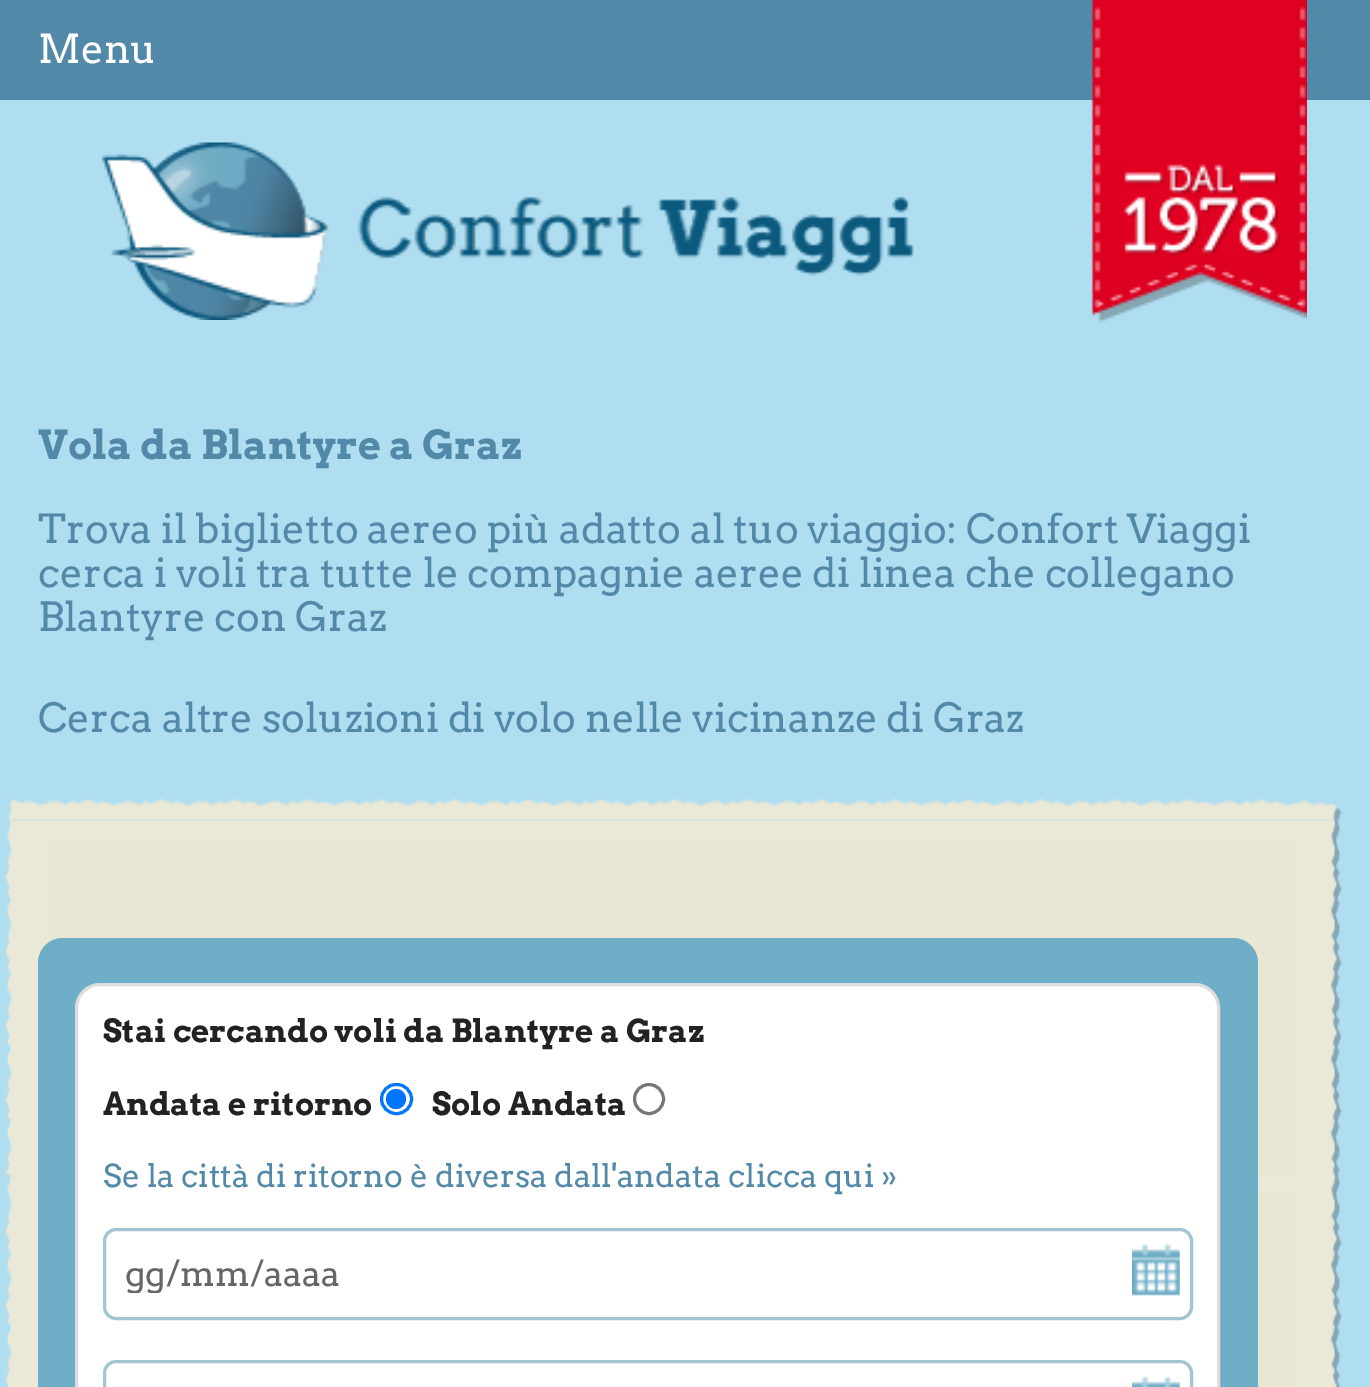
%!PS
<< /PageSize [1370 1387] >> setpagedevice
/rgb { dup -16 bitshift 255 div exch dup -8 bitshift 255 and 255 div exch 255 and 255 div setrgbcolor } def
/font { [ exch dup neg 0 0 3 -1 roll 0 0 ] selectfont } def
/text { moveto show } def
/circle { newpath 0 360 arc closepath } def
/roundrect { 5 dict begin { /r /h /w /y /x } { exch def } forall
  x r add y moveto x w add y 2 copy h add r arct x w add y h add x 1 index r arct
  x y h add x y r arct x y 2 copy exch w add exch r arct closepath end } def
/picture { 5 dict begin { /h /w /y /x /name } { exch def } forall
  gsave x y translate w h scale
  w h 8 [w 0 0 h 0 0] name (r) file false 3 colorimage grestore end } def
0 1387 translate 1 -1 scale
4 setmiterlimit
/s1 { /Arvo-Regular 40 font 16#FFFFFF rgb } def
/s2 { /Arvo-Bold 40 font 16#5289A8 rgb } def
/s3 { /Arvo-Regular 40 font 16#5289A8 rgb } def
/s4 { /Arvo-Bold 31.6 font 16#222222 rgb } def
/s5 { /Arvo-Regular 31.6 font 16#5289A8 rgb } def
/s6 { /Arvo-Regular 34.75 font 16#666666 rgb } def
16#B0DEF1 rgb
0 0 1370 1387 rectfill
16#5289A8 rgb
0 0 1370 100 rectfill
s1
(Menu) 38 63 text
(pic1.raw) 101 142 813 178 picture
(pic2.raw) 1091 0 216 323 picture
s2
(Vola da Blantyre a Graz) 38 459 text
s3
(Trova il biglietto aereo più adatto al tuo viaggio: Confort Viaggi) 38 543 text
(cerca i voli tra tutte le compagnie aeree di linea che collegano) 38 587 text
(Blantyre con Graz) 38 631 text
(Cerca altre soluzioni di volo nelle vicinanze di Graz) 38 732 text
(pic3.raw) 8 798 1334 22 picture
(pic4.raw) 4 819 1338 568 picture
16#6EAEC7 rgb
38 938 1220 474 25 roundrect fill
16#FFFFFF rgb
76.5 984.5 1142 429 23.5 roundrect gsave fill grestore
16#DDDDDD rgb
3 setlinewidth
stroke
s4
(Stai cercando voli da Blantyre a Graz) 103 1042 text
(Andata e ritorno) 103 1115 text
16#0075FF rgb
381.5 1084.5 30 29 14.5 roundrect stroke
396 1099 10 circle fill
s4
(Solo Andata) 432 1115 text
16#767676 rgb
649 1099 14.5 circle stroke
s5
(Se la città di ritorno è diversa dall'andata clicca qui ») 103 1187 text
16#A2C4D4 rgb
104.5 1229.5 1087 89 11.5 roundrect stroke
gsave
125 1253 1045 40 rectclip
s6
(gg/mm/aaaa) 125 1286 text
grestore
(pic5.raw) 1132 1244 48 52 picture
104.5 1361.5 1087 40 11.5 roundrect stroke
(pic6.raw) 1132 1376 48 11 picture
showpage
